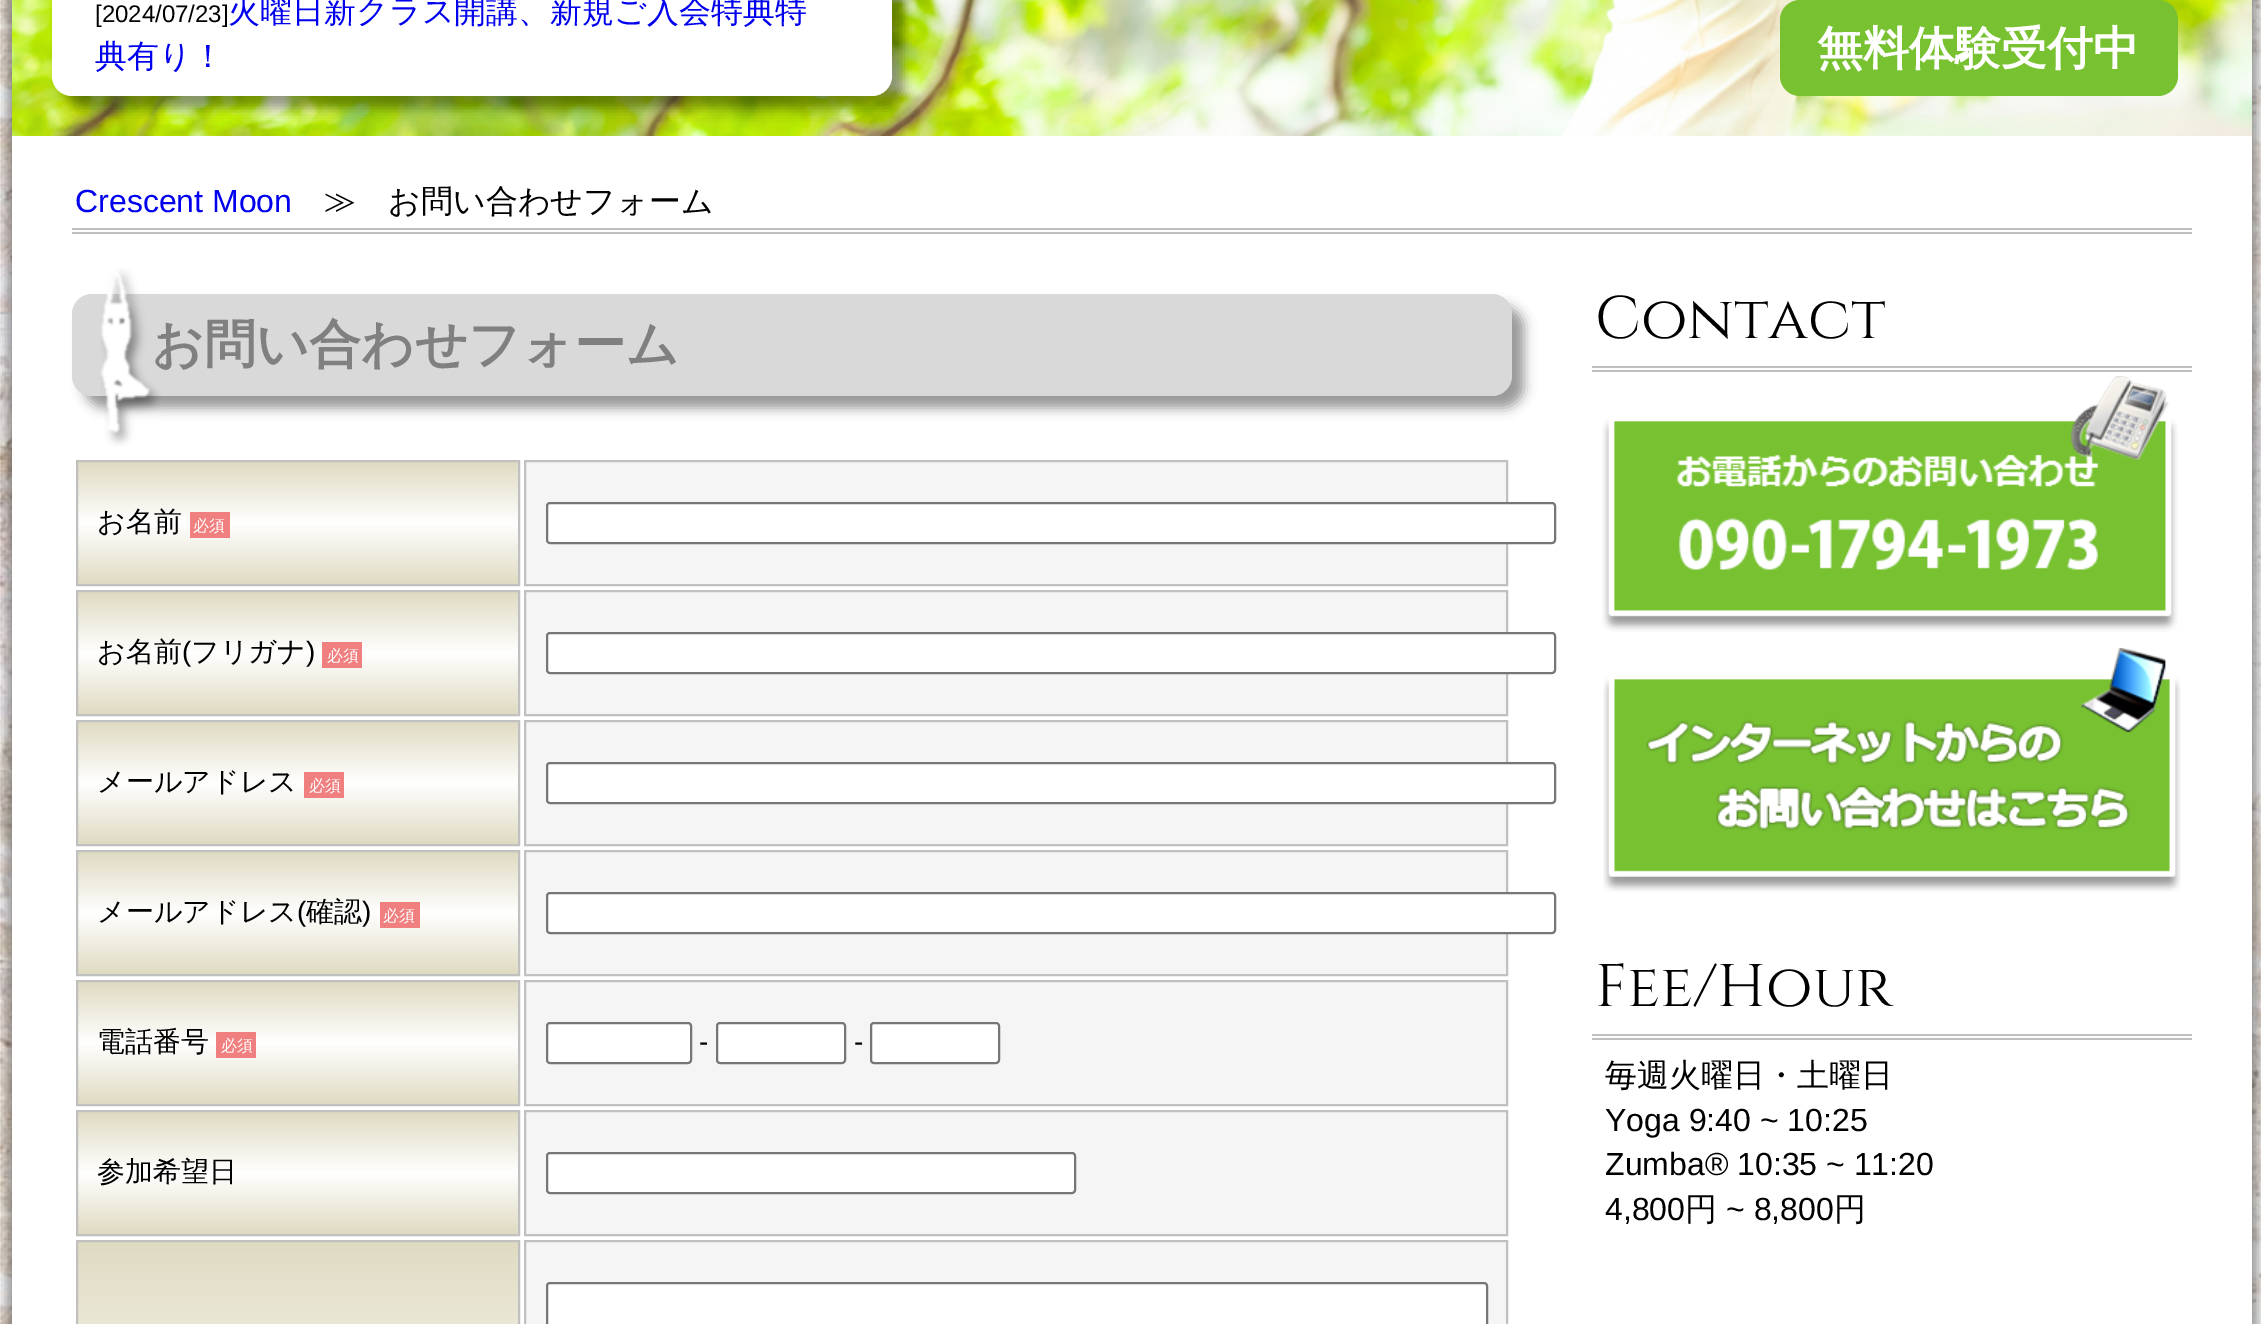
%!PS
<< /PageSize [2261 1324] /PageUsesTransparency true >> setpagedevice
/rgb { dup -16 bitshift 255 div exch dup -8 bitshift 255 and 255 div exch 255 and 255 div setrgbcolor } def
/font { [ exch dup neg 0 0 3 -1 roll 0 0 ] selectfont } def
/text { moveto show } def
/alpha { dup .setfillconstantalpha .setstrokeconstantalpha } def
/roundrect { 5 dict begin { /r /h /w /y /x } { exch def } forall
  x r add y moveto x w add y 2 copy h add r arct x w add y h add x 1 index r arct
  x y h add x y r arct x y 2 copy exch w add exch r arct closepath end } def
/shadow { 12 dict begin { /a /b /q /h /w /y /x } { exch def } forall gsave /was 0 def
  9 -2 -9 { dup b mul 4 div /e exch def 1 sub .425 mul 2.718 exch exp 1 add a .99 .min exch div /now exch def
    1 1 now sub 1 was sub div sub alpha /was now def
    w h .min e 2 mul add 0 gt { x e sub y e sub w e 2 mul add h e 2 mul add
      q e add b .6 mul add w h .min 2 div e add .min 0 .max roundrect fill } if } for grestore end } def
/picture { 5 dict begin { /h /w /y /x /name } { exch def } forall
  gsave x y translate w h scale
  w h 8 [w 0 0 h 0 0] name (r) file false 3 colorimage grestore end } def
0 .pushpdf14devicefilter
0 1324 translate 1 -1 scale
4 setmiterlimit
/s1 { /LiberationSans-Regular 24 font 16#000000 rgb } def
/s2 { /WenQuanYiZenHei-Medium 32 font 16#0000EE rgb } def
/s3 { /WenQuanYiZenHei-Bold 46 font 16#FFFFFF rgb } def
/s4 { /LiberationSans-Regular 32 font 16#0000EE rgb } def
/s5 { /WenQuanYiZenHei-Medium 32 font 16#000000 rgb } def
/s6 { /WenQuanYiZenHei-Bold 52 font 16#808080 rgb } def
/s7 { /WenQuanYiZenHei-Medium 28 font 16#000000 rgb } def
/s8 { /WenQuanYiZenHei-Medium 16 font 16#FFFFFF rgb } def
/s9 { /LiberationSans-Regular 28 font 16#000000 rgb } def
/s10 { /Cinzel-Regular 60 font 16#000000 rgb } def
/s11 { /LiberationSans-Regular 32 font 16#000000 rgb } def
16#FFFFFF rgb
0 0 2261 1324 rectfill
(pic1.raw) 0 0 2261 1324 picture
16#000000 rgb
6 -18 2252 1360 0 6 0.4 shadow
16#FFFFFF rgb
12 136 2240 1188 rectfill
(pic2.raw) 12 0 2240 136 picture
16#000000 rgb
64 -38 840 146 20 6 0.4 shadow
16#FFFFFF rgb
52 -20 840 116 20 roundrect fill
s1
([2024/07/23]) 95 22 text
s2
(火曜日新クラス開講、新規ご入会特典特) 228 22 text
(典有り！) 95 67 text
16#78C232 rgb
1780 0 398 96 20 roundrect fill
s3
(無料体験受付中) 1817 64 text
16#C0C0C0 rgb
72 228 2120 2 rectfill
72 232 2120 2 rectfill
s4
(Crescent Moon) 75 212 text
s5
(≫　お問い合わせフォーム) 324 212 text
84 306 1440 102 20 6 0.4 shadow
16#D9D9D9 rgb
72 294 1440 102 20 roundrect fill
s6
(お問い合わせフォーム) 151 362 text
(pic3.raw) 100 268 61 178 picture
gsave 78 462 moveto 518 462 lineto 518 584 lineto 78 584 lineto closepath clip newpath
<< /ShadingType 2 /ColorSpace /DeviceRGB /Coords [298 462 298 584] /Extend [true true] /Function << /FunctionType 3 /Domain [0 1] /Functions [<< /FunctionType 2 /Domain [0 1] /C0 [0.875 0.859 0.761] /C1 [1 1 1] /N 1 >> << /FunctionType 2 /Domain [0 1] /C0 [1 1 1] /C1 [0.875 0.859 0.761] /N 1 >>] /Bounds [0.5] /Encode [0 1 0 1] >> >> shfill grestore
16#C0C0C0 rgb
2 setlinewidth
77 461 442 124 rectstroke
s7
(お名前) 97 531 text
16#F08080 rgb
190 512 40 26 rectfill
s8
(必須) 193 531 text
16#F5F5F5 rgb
525 461 moveto 1507 461 lineto 1507 585 lineto 525 585 lineto closepath gsave fill grestore
16#C0C0C0 rgb
stroke
16#FFFFFF rgb
547 503 1008 40 3 roundrect gsave fill grestore
16#767676 rgb
stroke
gsave 78 592 moveto 518 592 lineto 518 714 lineto 78 714 lineto closepath clip newpath
<< /ShadingType 2 /ColorSpace /DeviceRGB /Coords [298 592 298 714] /Extend [true true] /Function << /FunctionType 3 /Domain [0 1] /Functions [<< /FunctionType 2 /Domain [0 1] /C0 [0.875 0.859 0.761] /C1 [1 1 1] /N 1 >> << /FunctionType 2 /Domain [0 1] /C0 [1 1 1] /C1 [0.875 0.859 0.761] /N 1 >>] /Bounds [0.5] /Encode [0 1 0 1] >> >> shfill grestore
16#C0C0C0 rgb
77 591 442 124 rectstroke
s7
(お名前) 97 661 text
s9
(\() 182 661 text
s7
(フリガナ) 191 661 text
s9
(\)) 306 661 text
16#F08080 rgb
322 642 40 26 rectfill
s8
(必須) 327 661 text
16#F5F5F5 rgb
525 591 moveto 1507 591 lineto 1507 715 lineto 525 715 lineto closepath gsave fill grestore
16#C0C0C0 rgb
stroke
16#FFFFFF rgb
547 633 1008 40 3 roundrect gsave fill grestore
16#767676 rgb
stroke
gsave 78 722 moveto 518 722 lineto 518 844 lineto 78 844 lineto closepath clip newpath
<< /ShadingType 2 /ColorSpace /DeviceRGB /Coords [298 722 298 844] /Extend [true true] /Function << /FunctionType 3 /Domain [0 1] /Functions [<< /FunctionType 2 /Domain [0 1] /C0 [0.875 0.859 0.761] /C1 [1 1 1] /N 1 >> << /FunctionType 2 /Domain [0 1] /C0 [1 1 1] /C1 [0.875 0.859 0.761] /N 1 >>] /Bounds [0.5] /Encode [0 1 0 1] >> >> shfill grestore
16#C0C0C0 rgb
77 721 442 124 rectstroke
s7
(メールアドレス) 97 791 text
16#F08080 rgb
304 772 40 26 rectfill
s8
(必須) 309 791 text
16#F5F5F5 rgb
525 721 moveto 1507 721 lineto 1507 845 lineto 525 845 lineto closepath gsave fill grestore
16#C0C0C0 rgb
stroke
16#FFFFFF rgb
547 763 1008 40 3 roundrect gsave fill grestore
16#767676 rgb
stroke
gsave 78 852 moveto 518 852 lineto 518 974 lineto 78 974 lineto closepath clip newpath
<< /ShadingType 2 /ColorSpace /DeviceRGB /Coords [298 852 298 974] /Extend [true true] /Function << /FunctionType 3 /Domain [0 1] /Functions [<< /FunctionType 2 /Domain [0 1] /C0 [0.875 0.859 0.761] /C1 [1 1 1] /N 1 >> << /FunctionType 2 /Domain [0 1] /C0 [1 1 1] /C1 [0.875 0.859 0.761] /N 1 >>] /Bounds [0.5] /Encode [0 1 0 1] >> >> shfill grestore
16#C0C0C0 rgb
77 851 442 124 rectstroke
s7
(メールアドレス) 97 921 text
s9
(\() 297 921 text
s7
(確認) 306 921 text
s9
(\)) 362 921 text
16#F08080 rgb
380 902 40 26 rectfill
s8
(必須) 383 921 text
16#F5F5F5 rgb
525 851 moveto 1507 851 lineto 1507 975 lineto 525 975 lineto closepath gsave fill grestore
16#C0C0C0 rgb
stroke
16#FFFFFF rgb
547 893 1008 40 3 roundrect gsave fill grestore
16#767676 rgb
stroke
gsave 78 982 moveto 518 982 lineto 518 1104 lineto 78 1104 lineto closepath clip newpath
<< /ShadingType 2 /ColorSpace /DeviceRGB /Coords [298 982 298 1104] /Extend [true true] /Function << /FunctionType 3 /Domain [0 1] /Functions [<< /FunctionType 2 /Domain [0 1] /C0 [0.875 0.859 0.761] /C1 [1 1 1] /N 1 >> << /FunctionType 2 /Domain [0 1] /C0 [1 1 1] /C1 [0.875 0.859 0.761] /N 1 >>] /Bounds [0.5] /Encode [0 1 0 1] >> >> shfill grestore
16#C0C0C0 rgb
77 981 442 124 rectstroke
s7
(電話番号) 97 1051 text
16#F08080 rgb
216 1032 40 26 rectfill
s8
(必須) 221 1051 text
16#F5F5F5 rgb
525 981 moveto 1507 981 lineto 1507 1105 lineto 525 1105 lineto closepath gsave fill grestore
16#C0C0C0 rgb
stroke
16#FFFFFF rgb
547 1023 144 40 3 roundrect gsave fill grestore
16#767676 rgb
stroke
s9
(-) 699 1051 text
16#FFFFFF rgb
717 1023 128 40 3 roundrect gsave fill grestore
16#767676 rgb
stroke
s9
(-) 854 1051 text
16#FFFFFF rgb
871 1023 128 40 3 roundrect gsave fill grestore
16#767676 rgb
stroke
gsave 78 1112 moveto 518 1112 lineto 518 1234 lineto 78 1234 lineto closepath clip newpath
<< /ShadingType 2 /ColorSpace /DeviceRGB /Coords [298 1112 298 1234] /Extend [true true] /Function << /FunctionType 3 /Domain [0 1] /Functions [<< /FunctionType 2 /Domain [0 1] /C0 [0.875 0.859 0.761] /C1 [1 1 1] /N 1 >> << /FunctionType 2 /Domain [0 1] /C0 [1 1 1] /C1 [0.875 0.859 0.761] /N 1 >>] /Bounds [0.5] /Encode [0 1 0 1] >> >> shfill grestore
16#C0C0C0 rgb
77 1111 442 124 rectstroke
s7
(参加希望日) 97 1181 text
16#F5F5F5 rgb
525 1111 moveto 1507 1111 lineto 1507 1235 lineto 525 1235 lineto closepath gsave fill grestore
16#C0C0C0 rgb
stroke
16#FFFFFF rgb
547 1153 528 40 3 roundrect gsave fill grestore
16#767676 rgb
stroke
gsave 78 1242 moveto 518 1242 lineto 518 1324 lineto 78 1324 lineto closepath clip newpath
<< /ShadingType 2 /ColorSpace /DeviceRGB /Coords [298 1242 298 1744] /Extend [true true] /Function << /FunctionType 3 /Domain [0 1] /Functions [<< /FunctionType 2 /Domain [0 1] /C0 [0.875 0.859 0.761] /C1 [1 1 1] /N 1 >> << /FunctionType 2 /Domain [0 1] /C0 [1 1 1] /C1 [0.875 0.859 0.761] /N 1 >>] /Bounds [0.5] /Encode [0 1 0 1] >> >> shfill grestore
16#C0C0C0 rgb
77 1241 442 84 rectstroke
16#F5F5F5 rgb
525 1241 moveto 1507 1241 lineto 1507 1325 lineto 525 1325 lineto closepath gsave fill grestore
16#C0C0C0 rgb
stroke
16#FFFFFF rgb
547 1283 940 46 3 roundrect gsave fill grestore
16#767676 rgb
stroke
16#C0C0C0 rgb
1592 366 600 2 rectfill
1592 370 600 2 rectfill
s10
(Contact) 1595 338 text
(pic4.raw) 1602 376 576 256 picture
(pic5.raw) 1603 648 578 244 picture
16#C0C0C0 rgb
1592 1034 600 2 rectfill
1592 1038 600 2 rectfill
s10
(Fee/Hour) 1595 1006 text
s5
(毎週火曜日・土曜日) 1605 1086 text
s11
(Yoga 9:40 ~ 10:25) 1605 1131 text
(Zumba® 10:35 ~ 11:20) 1605 1175 text
(4,800) 1605 1220 text
s5
(円) 1685 1220 text
s11
(~ 8,800) 1726 1220 text
s5
(円) 1834 1220 text
.poppdf14devicefilter showpage
